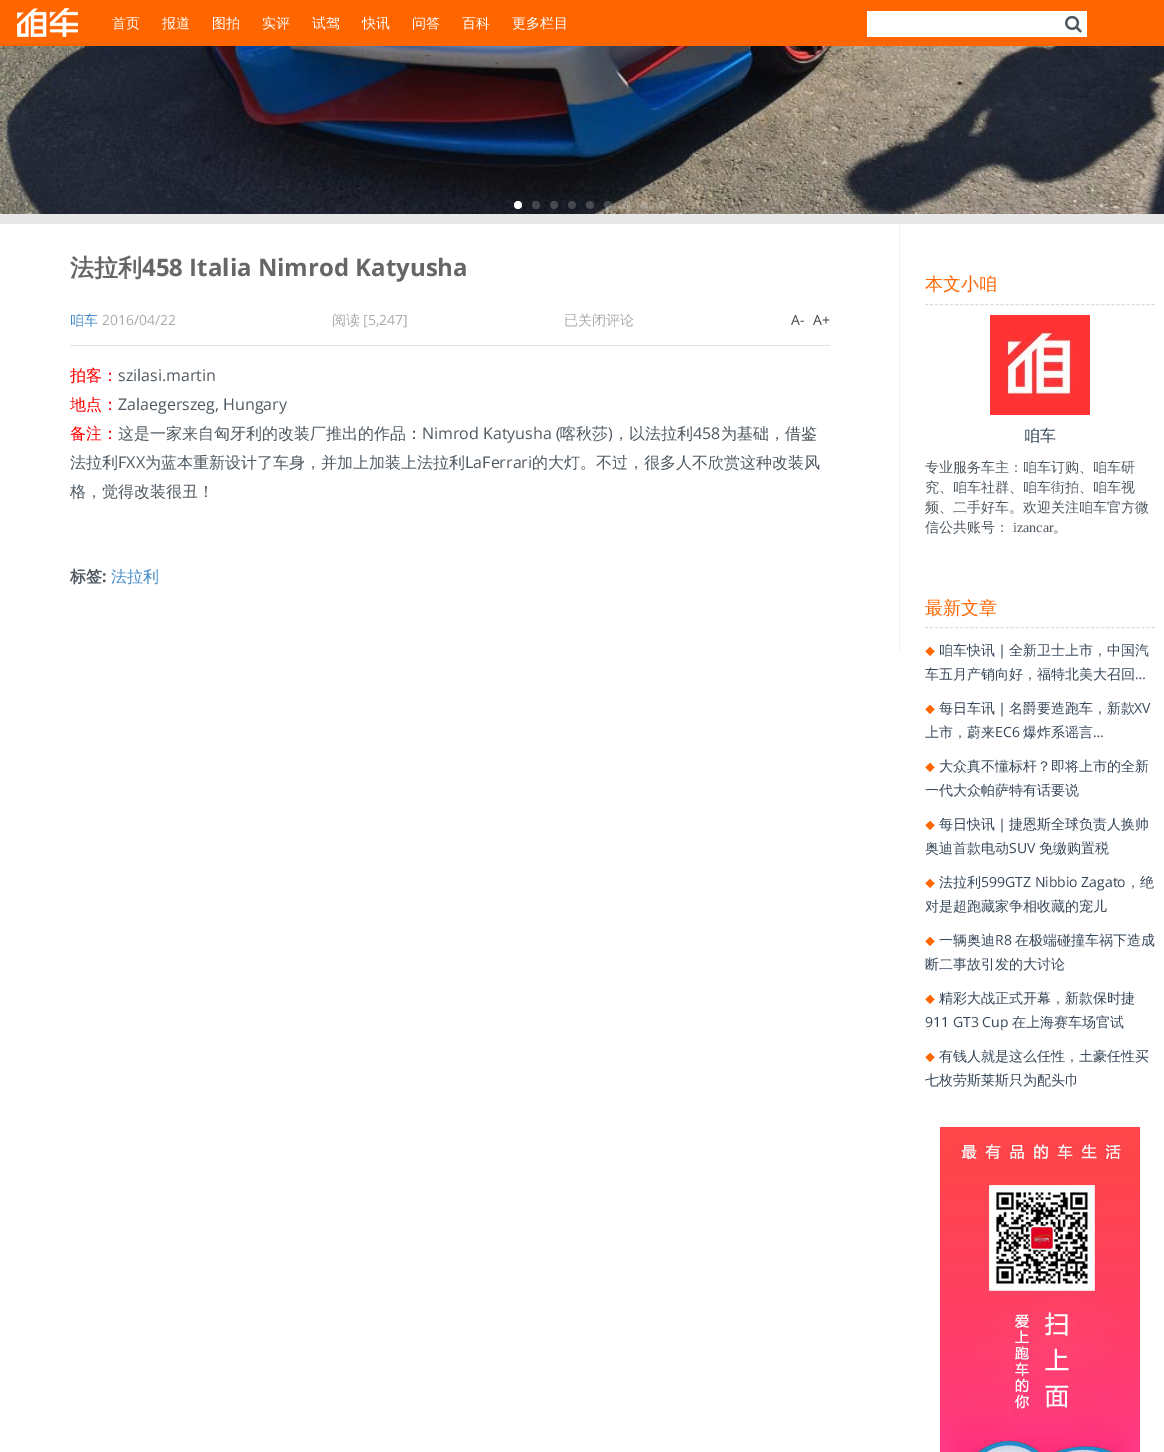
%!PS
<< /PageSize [1164 1452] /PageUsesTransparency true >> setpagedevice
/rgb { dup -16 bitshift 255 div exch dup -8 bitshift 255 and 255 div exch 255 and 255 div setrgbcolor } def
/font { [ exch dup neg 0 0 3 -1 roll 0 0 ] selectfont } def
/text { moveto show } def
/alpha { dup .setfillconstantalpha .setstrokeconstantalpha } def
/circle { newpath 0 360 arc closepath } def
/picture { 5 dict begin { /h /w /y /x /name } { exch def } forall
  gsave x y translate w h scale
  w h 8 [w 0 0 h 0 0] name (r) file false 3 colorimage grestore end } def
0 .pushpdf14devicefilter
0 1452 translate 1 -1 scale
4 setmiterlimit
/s1 { /WenQuanYiZenHei-Medium 14 font 16#FFFFFF rgb } def
/s2 { /WenQuanYiZenHei-Bold 24 font 16#666666 rgb } def
/s3 { /OpenSans-Bold 24 font 16#666666 rgb } def
/s4 { /WenQuanYiZenHei-Medium 14 font 16#428BCA rgb } def
/s5 { /OpenSans-Regular 14 font 16#AAAAAA rgb } def
/s6 { /WenQuanYiZenHei-Medium 14 font 16#AAAAAA rgb } def
/s7 { /OpenSans-Regular 14 font 16#444444 rgb } def
/s8 { /WenQuanYiZenHei-Medium 16 font 16#FF0000 rgb } def
/s9 { /OpenSans-Regular 16 font 16#4E5860 rgb } def
/s10 { /WenQuanYiZenHei-Medium 16 font 16#4E5860 rgb } def
/s11 { /WenQuanYiZenHei-Bold 16 font 16#4E5860 rgb } def
/s12 { /OpenSans-Bold 16 font 16#4E5860 rgb } def
/s13 { /WenQuanYiZenHei-Medium 16 font 16#428BCA rgb } def
/s14 { /WenQuanYiZenHei-Medium 18 font 16#FF6600 rgb } def
/s15 { /WenQuanYiZenHei-Medium 16 font 16#38485A rgb } def
/s16 { /WenQuanYiZenHei-Medium 14 font 16#4E5860 rgb } def
/s17 { /LiberationSerif-Regular 14 font 16#4E5860 rgb } def
/s18 { /WenQuanYiZenHei-Medium 10 font 16#FF6600 rgb } def
/s19 { /WenQuanYiZenHei-Medium 14 font 16#38485A rgb } def
/s20 { /OpenSans-Regular 14 font 16#38485A rgb } def
16#FFFFFF rgb
0 0 1164 1452 rectfill
16#FF6600 rgb
0 0 1164 46 rectfill
(pic1.raw) 17 8 61 29 picture
s1
(首页) 112 28 text
(报道) 162 28 text
(图拍) 212 28 text
(实评) 262 28 text
(试驾) 312 28 text
(快讯) 362 28 text
(问答) 412 28 text
(百科) 462 28 text
(更多栏目) 512 28 text
867 11 220 26 rectfill
(pic2.raw) 1065 15 17 18 picture
16#E8E8E8 rgb
0 214 1164 10 rectfill
(pic3.raw) 0 46 1164 168 picture
16#FFFFFF rgb
518 205 4 circle fill
0.2 alpha
536 205 4 circle fill
554 205 4 circle fill
572 205 4 circle fill
590 205 4 circle fill
608 205 4 circle fill
626 205 4 circle fill
644 205 4 circle fill
662 205 4 circle fill
1 alpha
16#F2F2F2 rgb
899 224 1 428 rectfill
s2
(法拉利) 70 276 text
s3
(458 Italia Nimrod Katyusha) 142 276 text
16#E5E5E5 rgb
70 345 760 1 rectfill
s4
(咱车) 70 325 text
s5
(2016/04/22) 102 325 text
s6
(阅读) 332 325 text
s5
([5,247]) 363 325 text
s6
(已关闭评论) 564 325 text
s7
(A-) 791 325 text
(A+) 813 325 text
s8
(拍客：) 70 381 text
s9
(szilasi.martin) 118 381 text
s8
(地点：) 70 410 text
s9
(Zalaegerszeg, Hungary) 118 410 text
s8
(备注：) 70 439 text
s10
(这是一家来自匈牙利的改装厂推出的作品：) 118 439 text
s9
(Nimrod Katyusha \() 422 439 text
s10
(喀秋莎 ，以法拉利) 560 439 text
(为基础，借鉴) 721 439 text
s9
(\)) 608 439 text
(458) 693 439 text
s10
(法拉利) 70 468 text
s9
(FXX) 118 468 text
s10
(为蓝本重新设计了车身，并加上加装上法拉利) 145 468 text
s9
(LaFerrari) 465 468 text
s10
(的大灯。不过，很多人不欣赏这种改装风) 532 468 text
(格，觉得改装很丑！) 70 497 text
s11
(标签) 70 582 text
s12
(:) 102 582 text
s13
(法拉利) 111 582 text
16#DCDCDC rgb
[3 2.04] 0 setdash
925 304.5 moveto 1155 304.5 lineto stroke
s14
(本文小咱) 925 290 text
(pic4.raw) 990 315 100 100 picture
s15
(咱车) 1024 441 text
s16
(专业服务车主：咱车订购、咱车研) 925 472 text
(究、咱车社群、咱车街拍、咱车视) 925 492 text
(频、二手好车。欢迎关注咱车官方微) 925 512 text
(信公共账号：) 925 532 text
s17
(izancar) 1013 532 text
s16
(。) 1053 532 text
16#DCDCDC rgb
925 627.5 moveto 1155 627.5 lineto stroke
s14
(最新文章) 925 614 text
s18
(◆) 925 655 text
s19
(咱车快讯｜全新卫士上市，中国汽) 939 655 text
(车五月产销向好，福特北美大召回) 925 679 text
s20
(…) 1135 679 text
s18
(◆) 925 713 text
s19
(每日车讯｜名爵要造跑车，新款) 939 713 text
s20
(XV) 1134 713 text
s19
(上市，蔚来) 925 737 text
s20
(EC6) 995 737 text
s19
(爆炸系谣言) 1023 737 text
s20
(…) 1093 737 text
s18
(◆) 925 771 text
s19
(大众真不懂标杆？即将上市的全新) 939 771 text
(一代大众帕萨特有话要说) 925 795 text
s18
(◆) 925 829 text
s19
(每日快讯｜捷恩斯全球负责人换帅) 939 829 text
(奥迪首款电动) 925 853 text
s20
(SUV) 1009 853 text
s19
(免缴购置税) 1039 853 text
s18
(◆) 925 887 text
s19
(法拉利) 939 887 text
s20
(599GTZ Nibbio Zagato) 981 887 text
s19
(，绝) 1126 887 text
(对是超跑藏家争相收藏的宠儿) 925 911 text
s18
(◆) 925 945 text
s19
(一辆奥迪) 939 945 text
s20
(R8) 995 945 text
s19
(在极端碰撞车祸下造成) 1015 945 text
(断二事故引发的大讨论) 925 969 text
s18
(◆) 925 1003 text
s19
(精彩大战正式开幕，新款保时捷) 939 1003 text
s20
(911 GT3 Cup) 925 1027 text
s19
(在上海赛车场官试) 1012 1027 text
s18
(◆) 925 1061 text
s19
(有钱人就是这么任性，土豪任性买) 939 1061 text
(七枚劳斯莱斯只为配头巾) 925 1085 text
(pic5.raw) 940 1127 200 325 picture
.poppdf14devicefilter showpage
